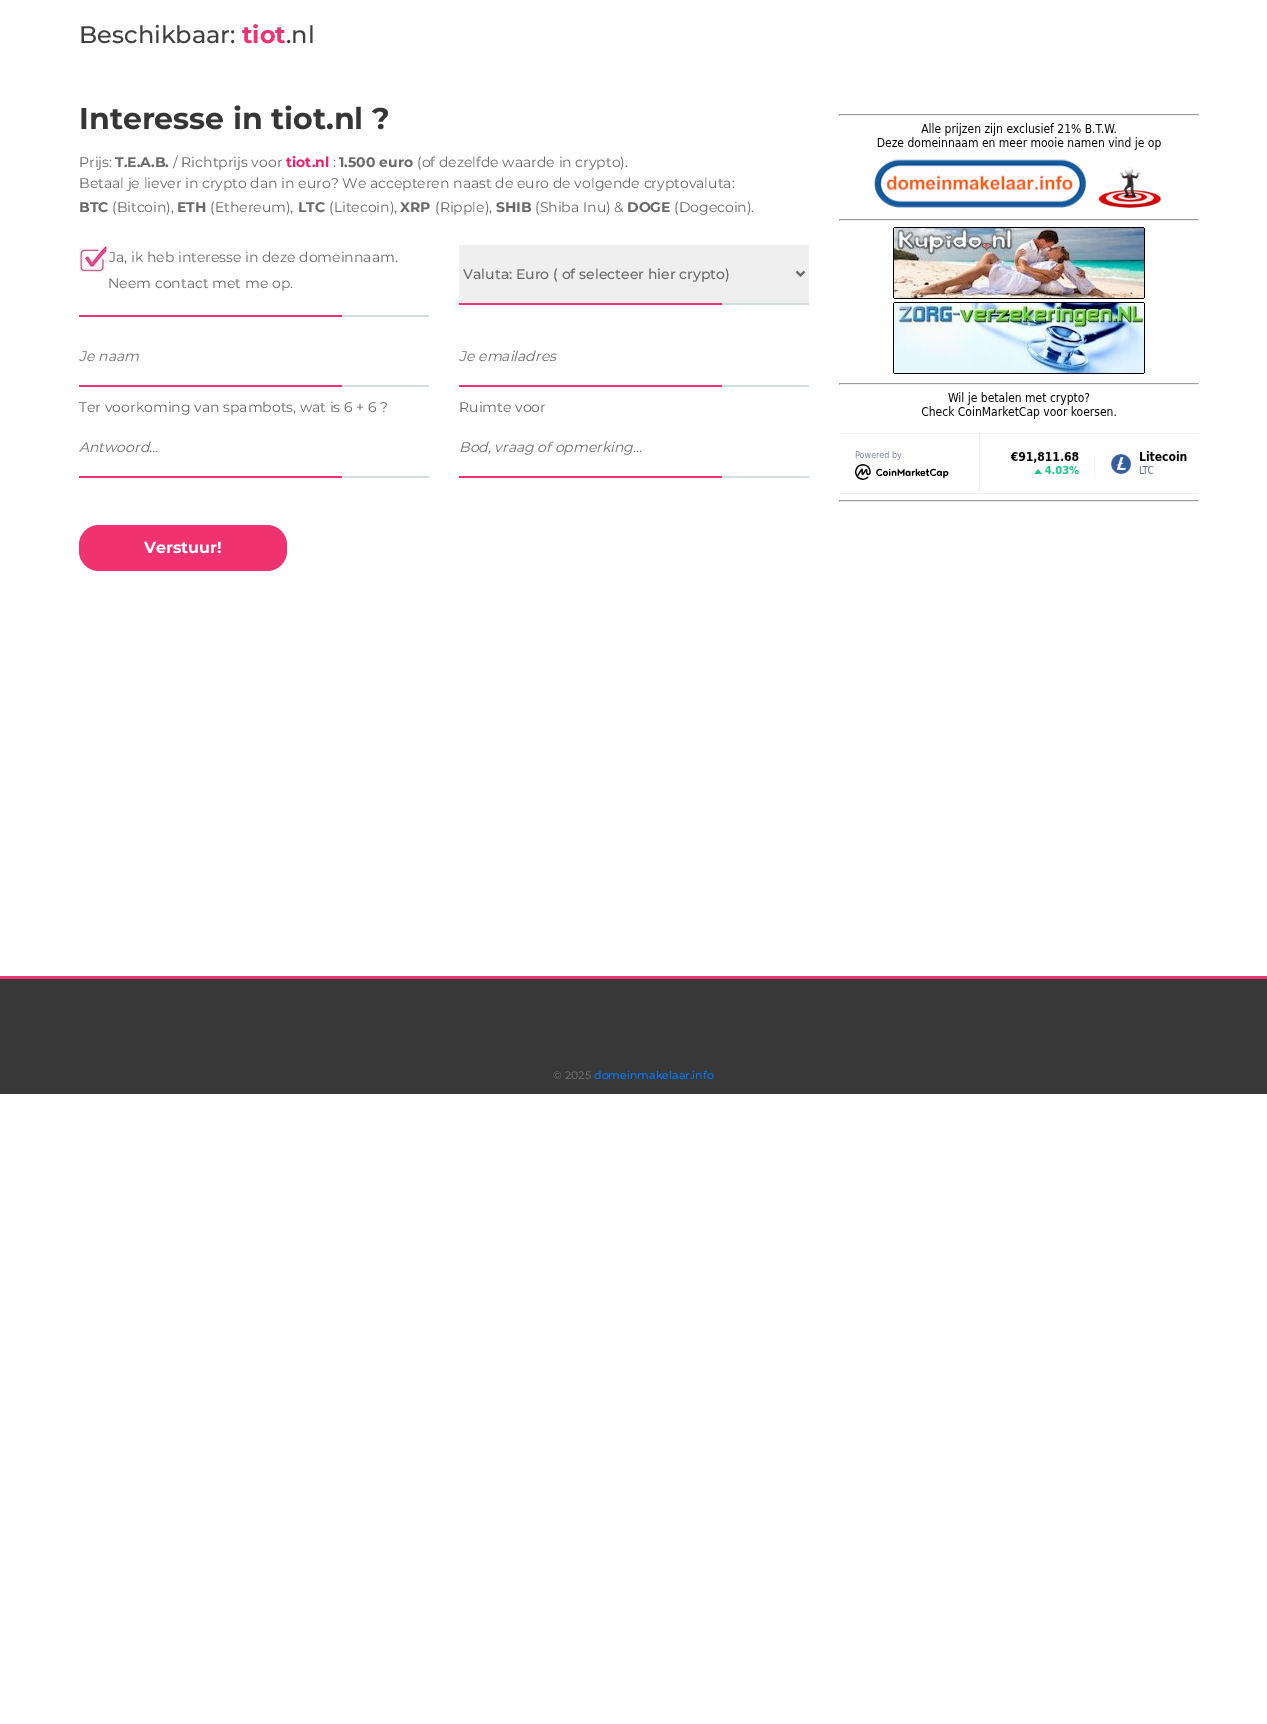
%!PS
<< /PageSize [1267 1724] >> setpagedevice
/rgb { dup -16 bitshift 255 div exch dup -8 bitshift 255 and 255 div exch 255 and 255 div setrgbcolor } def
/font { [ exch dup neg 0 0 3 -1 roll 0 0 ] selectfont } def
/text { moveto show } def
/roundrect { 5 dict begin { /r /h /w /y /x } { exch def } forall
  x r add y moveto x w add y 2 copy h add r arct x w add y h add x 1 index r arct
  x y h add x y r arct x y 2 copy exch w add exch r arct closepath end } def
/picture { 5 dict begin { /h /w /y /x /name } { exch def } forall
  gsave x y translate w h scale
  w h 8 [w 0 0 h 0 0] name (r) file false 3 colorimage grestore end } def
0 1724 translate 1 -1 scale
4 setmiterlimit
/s1 { /Montserrat-Medium 24 font 16#404040 rgb } def
/s2 { /Montserrat-Bold 24 font 16#F03271 rgb } def
/s3 { /Montserrat-Bold 30 font 16#373636 rgb } def
/s4 { /Montserrat-Regular 14 font 16#696969 rgb } def
/s5 { /Montserrat-Bold 14 font 16#696969 rgb } def
/s6 { /Montserrat-Bold 14 font 16#ED2274 rgb } def
/s7 { /Montserrat-Medium 14 font 16#696969 rgb } def
/s8 { /Montserrat-Italic 14 font 16#6F6F6F rgb } def
/s9 { /Montserrat-Bold 16 font 16#FFFFFF rgb } def
/s10 { /Montserrat-Medium 11 font 16#696969 rgb } def
/s11 { /Montserrat-Medium 11 font 16#007BFF rgb } def
16#FFFFFF rgb
0 0 1267 1724 rectfill
s1
(Beschikbaar:) 79 43 text
s2
(tiot) 242 43 text
s1
(.nl) 286 43 text
16#F03271 rgb
0 976 1267 3 rectfill
s3
(Interesse in tiot.nl ?) 79 129 text
s4
(Prijs:) 79 167 text
s5
(T.E.A.B.) 115 167 text
s4
(/ Richtprijs voor) 173 167 text
s6
(tiot.nl) 286 167 text
s4
(:) 333 167 text
s5
(1.500 euro) 339 167 text
s4
(\(of dezelfde waarde in crypto\).) 417 167 text
(Betaal je liever in crypto dan in euro? We accepteren naast de euro de volgende cryptovaluta:) 79 188 text
s5
(BTC) 79 212 text
s4
(\(Bitcoin\),) 112 212 text
s5
(ETH) 177 212 text
s4
(\(Ethereum\),) 210 212 text
s5
(LTC) 298 212 text
s4
(\(Litecoin\),) 329 212 text
s5
(XRP) 400 212 text
s4
(\(Ripple\),) 435 212 text
s5
(SHIB) 496 212 text
s4
(\(Shiba Inu\) &) 535 212 text
s5
(DOGE) 627 212 text
s4
(\(Dogecoin\).) 674 212 text
16#D4DCDE rgb
342 315 87 2 rectfill
(pic1.raw) 79 245 30 28 picture
s4
(Ja, ik heb interesse in deze domeinnaam.) 109 262 text
(Neem contact met me op.) 108 288 text
16#F03271 rgb
79 315 263 2 rectfill
16#D4DCDE rgb
722 303 87 2 rectfill
16#EFEFEF rgb
459 245 350 58 rectfill
16#696969 rgb
2 setlinewidth
796.5 271.5 moveto 800.5 275.5 lineto 804.5 271.5 lineto stroke
s7
(Valuta: Euro \( of selecteer hier crypto\)) 463 279 text
16#F03271 rgb
459 303 263 2 rectfill
16#D4DCDE rgb
342 385 87 2 rectfill
s8
(Je naam) 79 361 text
16#F03271 rgb
79 385 263 2 rectfill
16#D4DCDE rgb
722 385 87 2 rectfill
s8
(Je emailadres) 459 361 text
16#F03271 rgb
459 385 263 2 rectfill
16#D4DCDE rgb
342 476 87 2 rectfill
s4
(Ter voorkoming van spambots, wat is 6 + 6 ?) 79 412 text
s8
(Antwoord...) 79 452 text
16#F03271 rgb
79 476 263 2 rectfill
16#D4DCDE rgb
722 476 87 2 rectfill
s4
(Ruimte voor) 459 412 text
s8
(Bod, vraag of opmerking...) 459 452 text
16#F03271 rgb
459 476 263 2 rectfill
79 525 208 46 20 roundrect fill
s9
(Verstuur!) 144 553 text
(pic2.raw) 839 114 360 388 picture
16#383838 rgb
0 979 1267 115 rectfill
s10
(© 2025) 553 1079 text
s11
(domeinmakelaar.info) 594 1079 text
showpage
